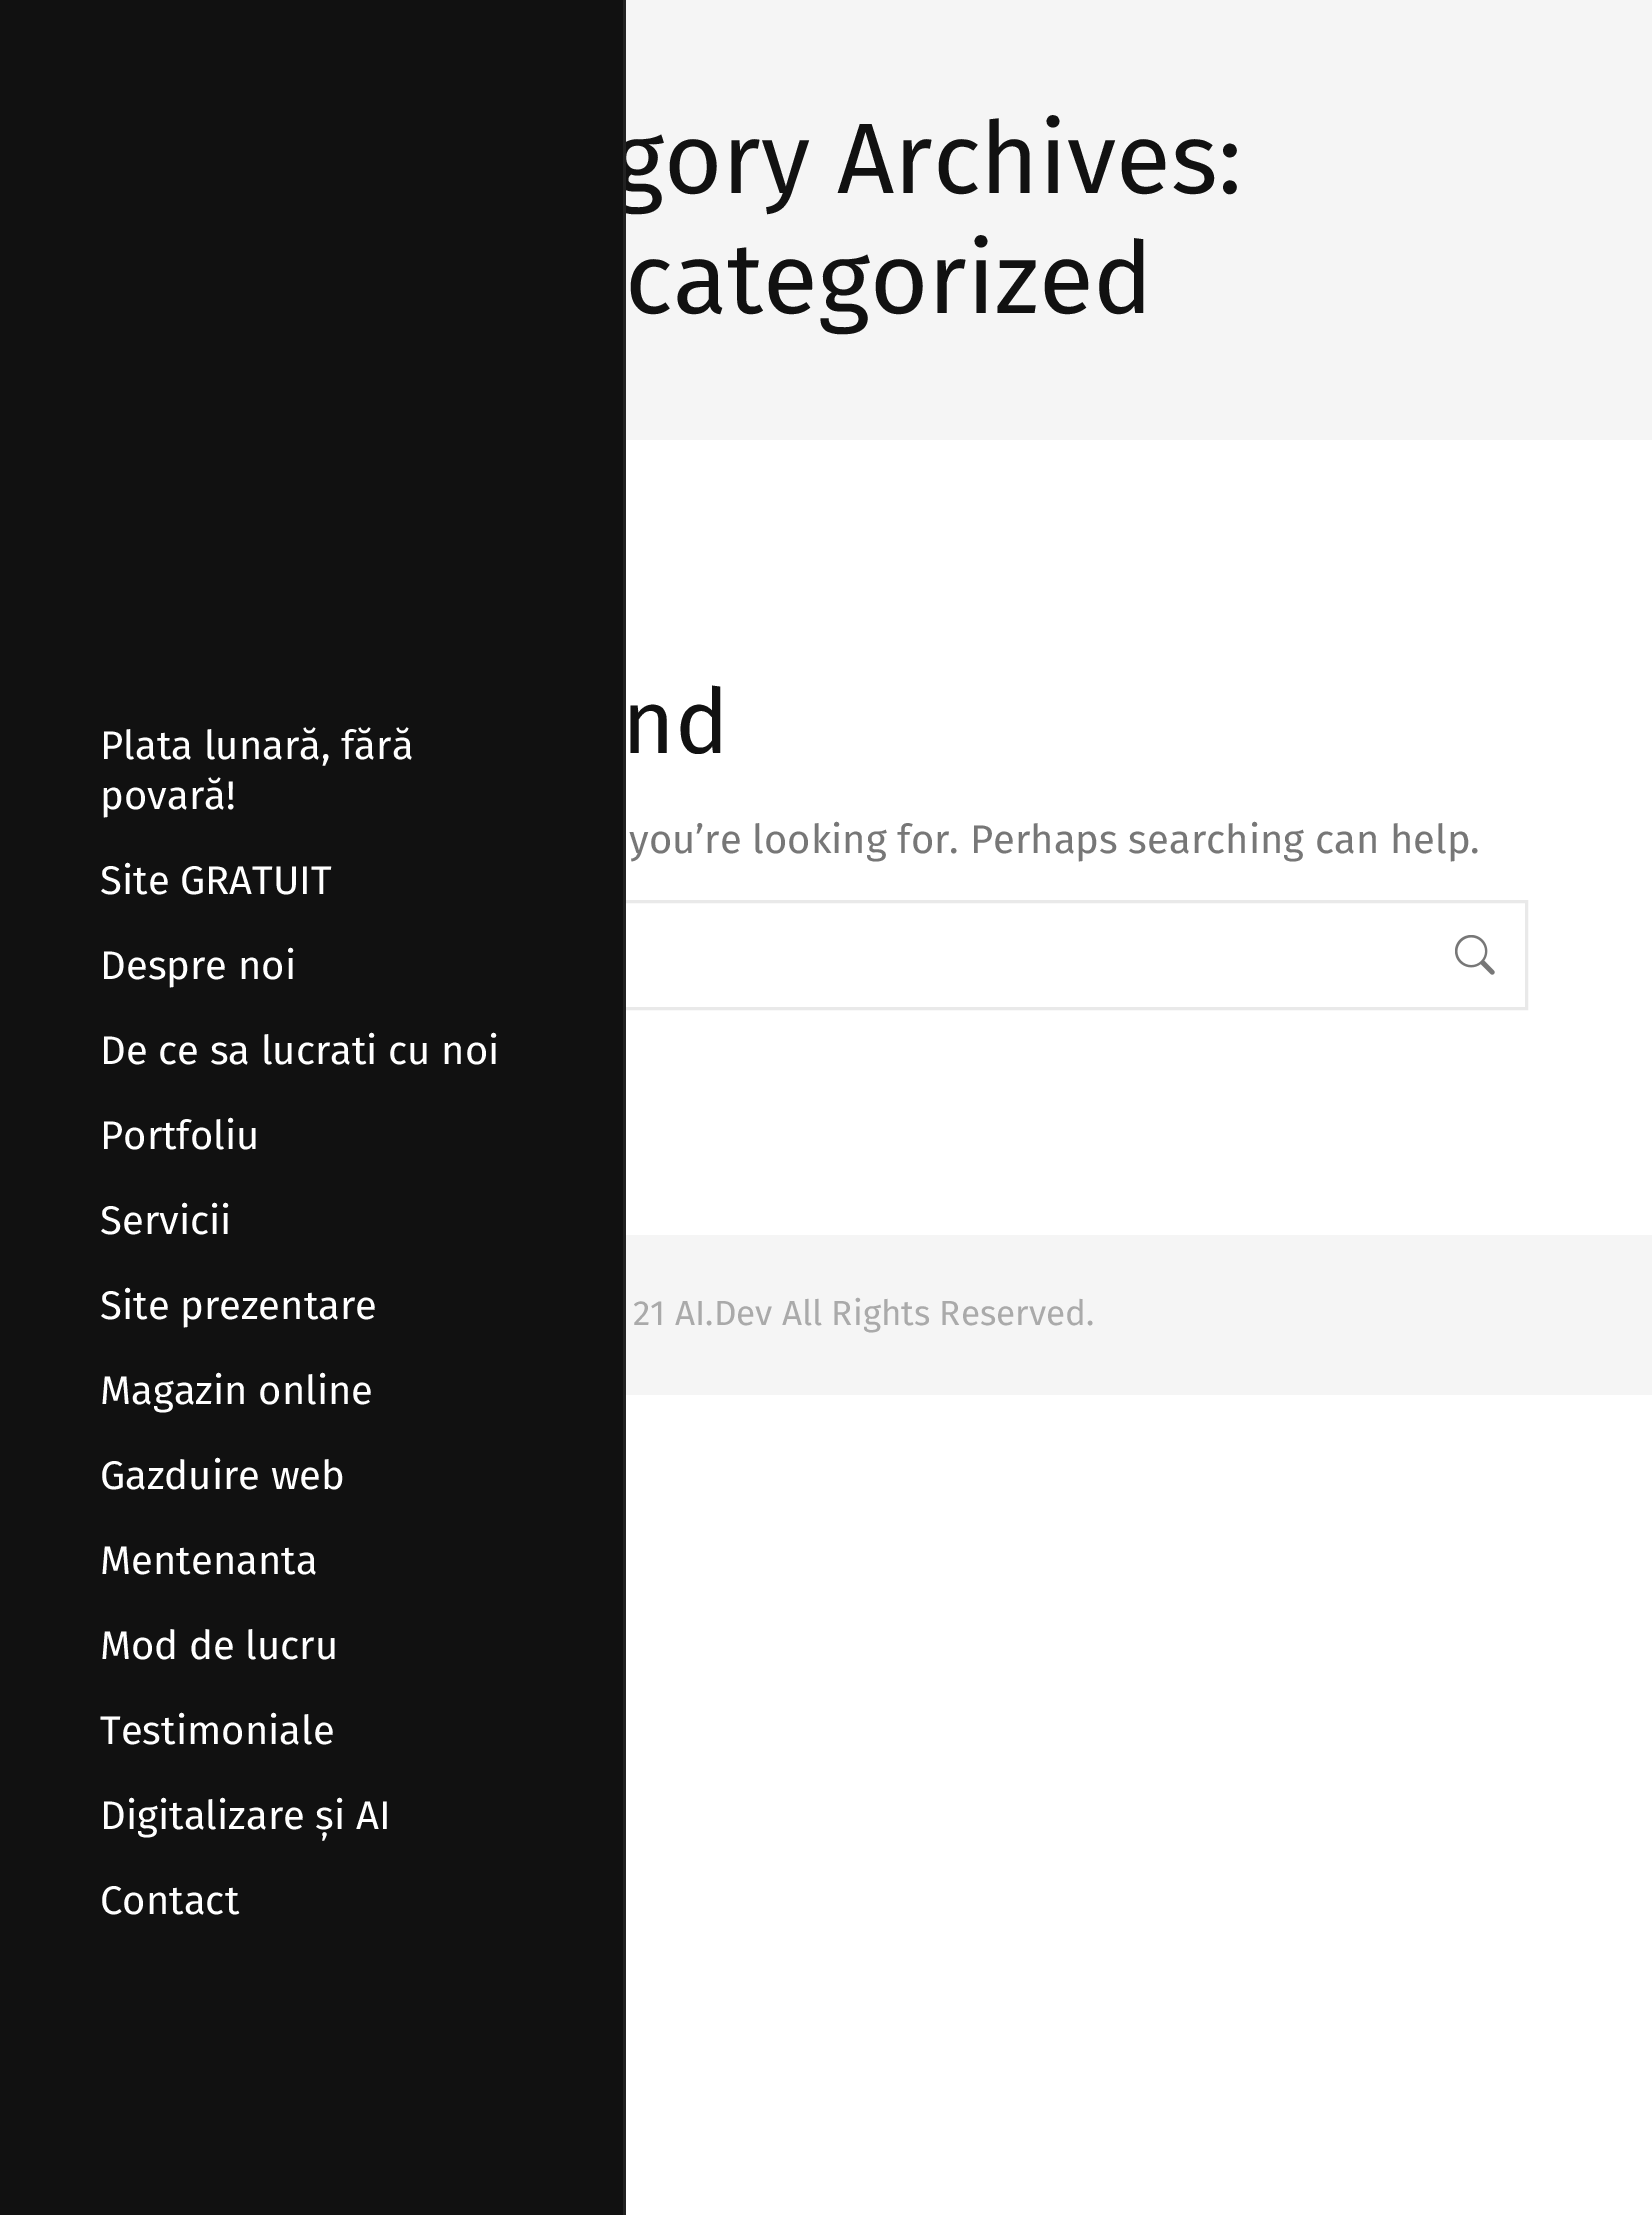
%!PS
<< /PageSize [1652 2215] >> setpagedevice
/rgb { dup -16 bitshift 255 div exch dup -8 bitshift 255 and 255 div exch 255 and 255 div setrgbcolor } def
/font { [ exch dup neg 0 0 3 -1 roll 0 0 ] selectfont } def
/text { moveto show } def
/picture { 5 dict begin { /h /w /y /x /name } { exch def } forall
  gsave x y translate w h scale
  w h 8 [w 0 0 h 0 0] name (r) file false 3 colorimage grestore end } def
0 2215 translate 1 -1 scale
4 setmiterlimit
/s1 { /FiraSans-Regular 100 font 16#111111 rgb } def
/s2 { /FiraSans-Regular 40 font 16#FFFFFF rgb } def
/s3 { /FiraSans-Regular 90 font 16#111111 rgb } def
/s4 { /FiraSans-Regular 40 font 16#777777 rgb } def
/s5 { /FiraSans-Regular 35 font 16#AAAAAA rgb } def
16#FFFFFF rgb
0 0 1652 2215 rectfill
16#F5F5F5 rgb
626 0 1026 440 rectfill
s1
(gory Archives:) 612 193 text
(categorized) 625 313 text
16#E9E9E9 rgb
3 setlinewidth
126.5 901.5 1400 107 rectstroke
16#111111 rgb
0 0 623 2215 rectfill
16#222222 rgb
623 0 3 2215 rectfill
s2
(Plata lunară, fără) 100 759 text
(povară!) 100 809 text
(Site GRATUIT) 100 894 text
(Despre noi) 100 979 text
(De ce sa lucrati cu noi) 100 1064 text
(Portfoliu) 100 1149 text
(Servicii) 100 1234 text
(Site prezentare) 100 1319 text
(Magazin online) 100 1404 text
(Gazduire web) 100 1489 text
(Mentenanta) 100 1574 text
(Mod de lucru) 100 1659 text
(Testimoniale) 100 1744 text
(Digitalizare și AI) 100 1829 text
(Contact) 100 1914 text
s3
(nd) 622 753 text
s4
(you’re looking for. Perhaps searching can help.) 629 853 text
(pic1.raw) 1455 935 40 40 picture
16#F5F5F5 rgb
626 1235 1026 160 rectfill
s5
(21 AI.Dev All Rights Reserved.) 633 1325 text
showpage
